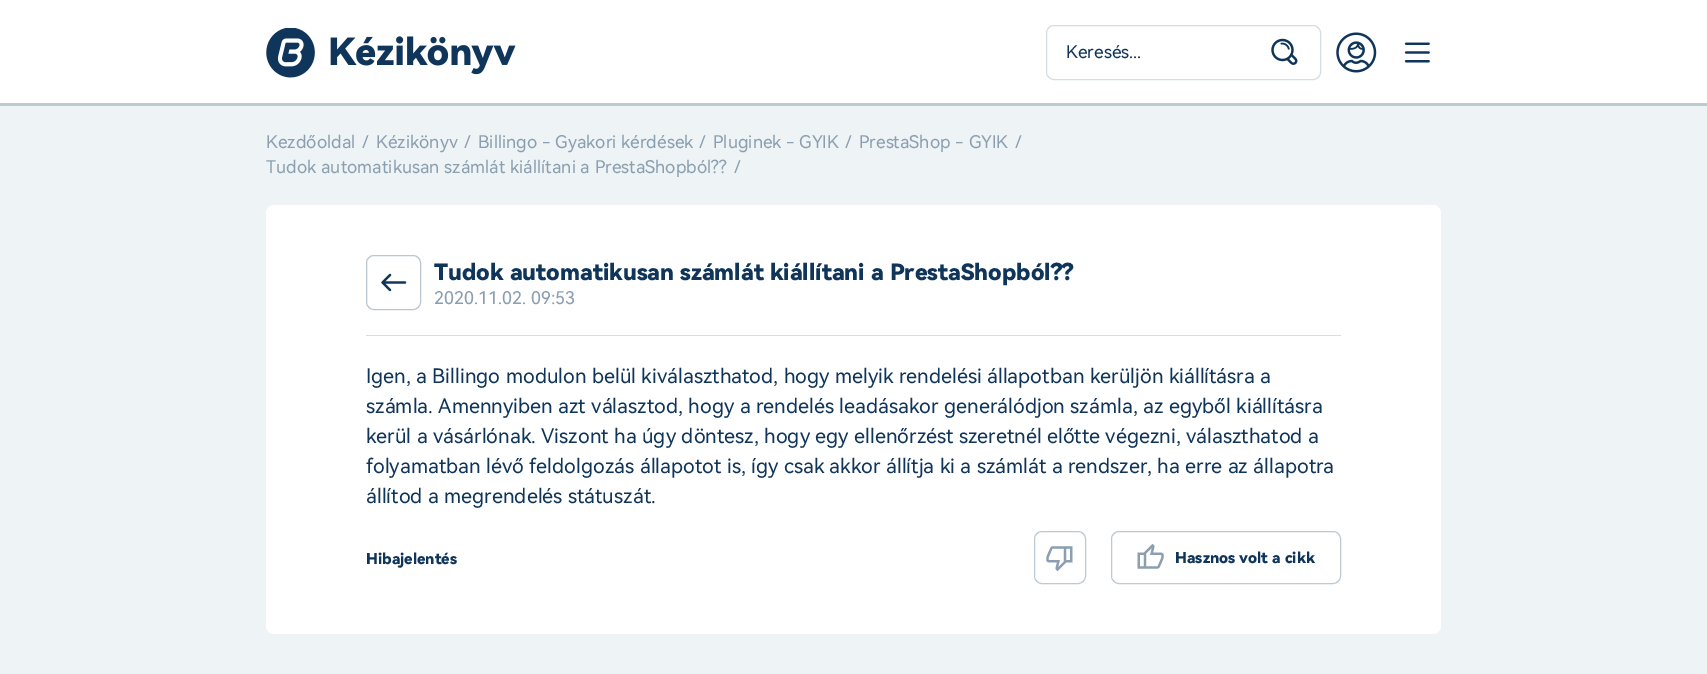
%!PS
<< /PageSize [1707 674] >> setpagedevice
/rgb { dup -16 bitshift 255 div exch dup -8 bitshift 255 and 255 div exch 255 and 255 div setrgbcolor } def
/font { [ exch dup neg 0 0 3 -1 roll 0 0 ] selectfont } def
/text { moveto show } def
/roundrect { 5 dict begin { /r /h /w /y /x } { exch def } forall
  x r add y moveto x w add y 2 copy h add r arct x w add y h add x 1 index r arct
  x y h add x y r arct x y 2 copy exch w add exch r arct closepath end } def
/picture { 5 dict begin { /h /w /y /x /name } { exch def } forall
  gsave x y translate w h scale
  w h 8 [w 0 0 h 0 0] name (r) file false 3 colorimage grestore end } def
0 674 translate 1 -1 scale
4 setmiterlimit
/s1 { /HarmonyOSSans-Regular 17.5 font 16#10355A rgb } def
/s2 { /HarmonyOSSans-Regular 17.5 font 16#8B9FB0 rgb } def
/s3 { /HarmonyOSSans-Black 22.5 font 16#10355A rgb } def
/s4 { /HarmonyOSSans-Regular 20 font 16#10355A rgb } def
/s5 { /HarmonyOSSans-Black 15 font 16#10355A rgb } def
16#EEF3F5 rgb
0 0 1707 674 rectfill
16#FFFFFF rgb
0 0 1707 103 rectfill
16#BDC9D3 rgb
0 103 1707 3 rectfill
(pic1.raw) 266 28 250 50 picture
(pic2.raw) 1271 38 27 27 picture
16#D5DEE4 rgb
1046.5 25.5 274 54 7.5 roundrect stroke
s1
(Keresés...) 1066 58 text
(pic3.raw) 1336 32 41 41 picture
(pic4.raw) 1404 42 26 21 picture
s2
(Kezdőoldal) 266 148 text
(/) 362 148 text
(Kézikönyv) 376 148 text
(/) 464 148 text
(Billingo - Gyakori kérdések) 478 148 text
(/) 699 148 text
(Pluginek - GYIK) 713 148 text
(/) 845 148 text
(PrestaShop - GYIK) 859 148 text
(/) 1015 148 text
(Tudok automatikusan számlát kiállítani a PrestaShopból??) 266 173 text
(/) 734 173 text
16#FFFFFF rgb
266 205 1175 429 8 roundrect fill
16#D5DEE4 rgb
366 335 975 1 rectfill
(pic5.raw) 381 273 26 19 picture
16#BBC7D0 rgb
366.5 255.5 54 54 7.5 roundrect stroke
s3
(Tudok automatikusan számlát kiállítani a PrestaShopból??) 434 280 text
s2
(2020.11.02. 09:53) 434 304 text
s4
(Igen, a Billingo modulon belül kiválaszthatod, hogy melyik rendelési állapotban kerüljön kiállításra a) 366 383 text
(számla. Amennyiben azt választod, hogy a rendelés leadásakor generálódjon számla, az egyből kiállításra) 366 413 text
(kerül a vásárlónak. Viszont ha úgy döntesz, hogy egy ellenőrzést szeretnél előtte végezni, választhatod a) 366 443 text
(folyamatban lévő feldolgozás állapotot is, így csak akkor állítja ki a számlát a rendszer, ha erre az állapotra) 366 473 text
(állítod a megrendelés státuszát.) 366 503 text
s5
(Hibajelentés) 366 564 text
(pic6.raw) 1046 546 27 26 picture
16#BDC9D3 rgb
1034.5 531.5 51 52 7.5 roundrect stroke
(pic7.raw) 1137 543 27 26 picture
1111.5 531.5 229 52 7.5 roundrect stroke
s5
(Hasznos volt a cikk) 1175 563 text
showpage
